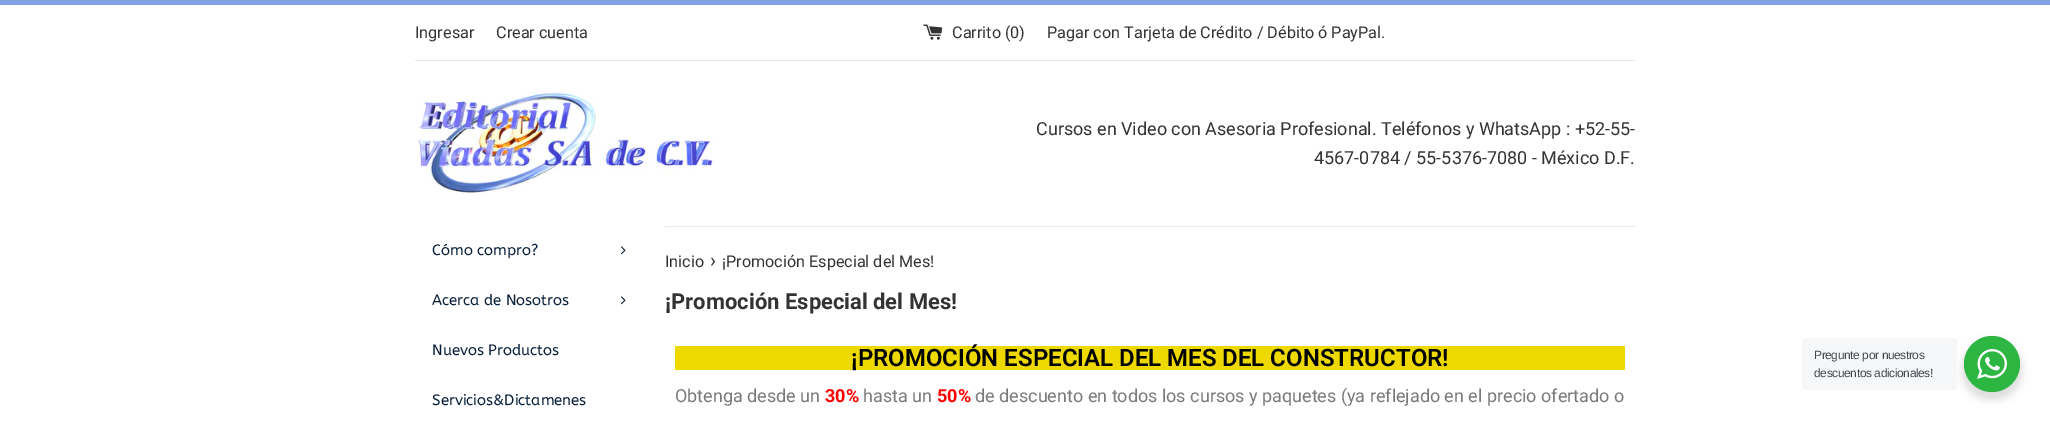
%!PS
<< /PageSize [2050 422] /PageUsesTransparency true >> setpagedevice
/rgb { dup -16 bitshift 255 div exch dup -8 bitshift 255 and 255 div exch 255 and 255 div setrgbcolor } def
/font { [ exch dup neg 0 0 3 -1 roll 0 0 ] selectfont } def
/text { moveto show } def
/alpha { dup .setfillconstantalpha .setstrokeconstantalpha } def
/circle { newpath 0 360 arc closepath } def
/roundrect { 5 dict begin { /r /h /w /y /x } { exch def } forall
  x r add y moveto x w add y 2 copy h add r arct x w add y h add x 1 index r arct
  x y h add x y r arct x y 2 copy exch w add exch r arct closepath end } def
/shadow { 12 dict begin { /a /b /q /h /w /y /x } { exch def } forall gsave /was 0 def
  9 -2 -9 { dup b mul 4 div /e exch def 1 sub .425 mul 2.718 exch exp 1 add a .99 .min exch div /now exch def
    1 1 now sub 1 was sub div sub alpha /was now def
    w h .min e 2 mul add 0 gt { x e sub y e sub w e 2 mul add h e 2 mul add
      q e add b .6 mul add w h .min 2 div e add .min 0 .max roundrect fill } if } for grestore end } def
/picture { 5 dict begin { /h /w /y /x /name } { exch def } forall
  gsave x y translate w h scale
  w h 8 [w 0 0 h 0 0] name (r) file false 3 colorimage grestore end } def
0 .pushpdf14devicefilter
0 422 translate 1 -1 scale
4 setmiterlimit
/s1 { /Roboto-Regular 16.2 font 16#333333 rgb } def
/s2 { /Roboto-Regular 18 font 16#333333 rgb } def
/s3 { /ABeeZee-Regular 15 font 16#0A203A rgb } def
/s4 { /Roboto-Regular 20 font 16#333333 rgb } def
/s5 { /Roboto-Bold 22 font 16#333333 rgb } def
/s6 { /Roboto-SemiBold 24 font 16#000000 rgb } def
/s7 { /Roboto-Regular 18 font 16#7A7A7A rgb } def
/s8 { /Roboto-Bold 18 font 16#FF0000 rgb } def
16#FFFFFF rgb
0 0 2050 422 rectfill
16#84A2E3 rgb
0 0 2050 5 rectfill
s1
(Ingresar) 415 38 text
(Crear cuenta) 496 38 text
(pic1.raw) 923 24 20 16 picture
(Carrito \(0\)) 952 38 text
(Pagar con Tarjeta de Crédito / Débito ó PayPal.) 1047 38 text
16#E8E8E8 rgb
415 60 1220 1 rectfill
(pic2.raw) 415 91 300 104 picture
s2
(Cursos en Video con Asesoria Profesional. Teléfonos y WhatsApp : +52-55-) 1036 135 text
(4567-0784 / 55-5376-7080 - México D.F.) 1314 164 text
s3
(Cómo compro?) 432 255 text
(pic3.raw) 621 246 5 9 picture
(Acerca de Nosotros) 432 305 text
(pic3.raw) 621 296 5 9 picture
(Nuevos Productos) 432 355 text
(Servicios&Dictamenes) 432 405 text
16#E8E8E8 rgb
665 226 970 1 rectfill
s1
(Inicio) 665 267 text
s4
(›) 710 267 text
s1
(¡Promoción Especial del Mes!) 722 267 text
s5
(¡Promoción Especial del Mes!) 665 309 text
16#EDD900 rgb
675 346 950 24 rectfill
s6
(¡PROMOCIÓN ESPECIAL DEL MES DEL CONSTRUCTOR!) 851 366 text
s7
(Obtenga desde un) 675 402 text
s8
(30%) 825 402 text
s7
(hasta un) 863 402 text
s8
(50%) 937 402 text
s7
(de descuento en todos los cursos y paquetes \(ya reflejado en el precio ofertado o) 975 402 text
16#000000 rgb
1962 340 60 60 30 4 0.14 shadow
16#F5F7F9 rgb
1802 338 155 52 4 roundrect fill
/LiberationSans-Regular 12 font
16#43474E rgb
1814 359 moveto -0.4 0 (Pregunte por nuestros) ashow
1814 377 moveto -0.4 0 (descuentos adicionales!) ashow
16#2DB742 rgb
1992 364 28 circle fill
(pic4.raw) 1977 349 30 30 picture
.poppdf14devicefilter showpage
